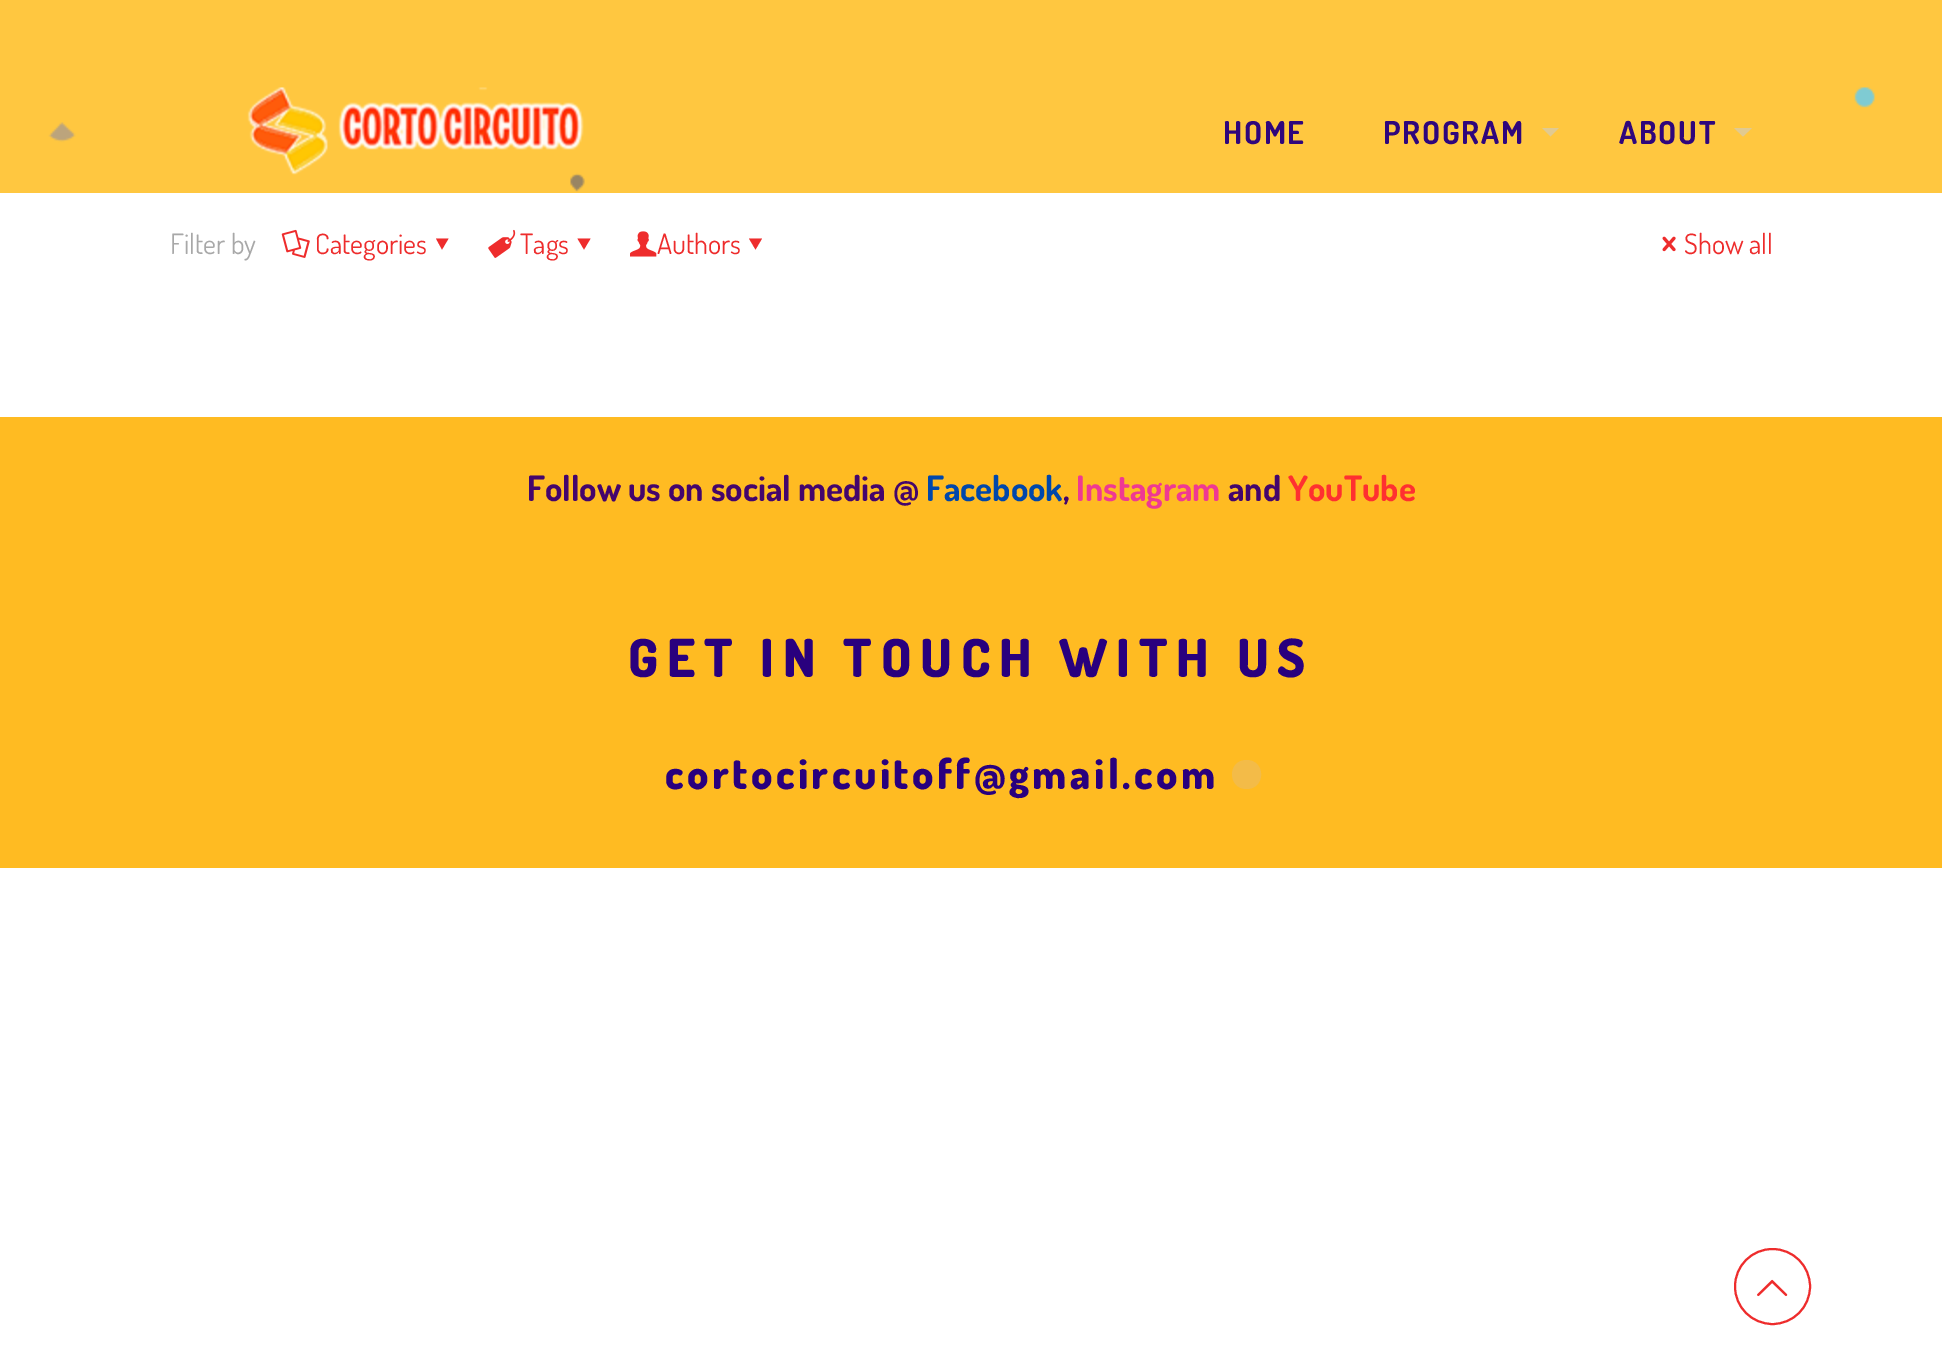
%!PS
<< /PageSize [1942 1359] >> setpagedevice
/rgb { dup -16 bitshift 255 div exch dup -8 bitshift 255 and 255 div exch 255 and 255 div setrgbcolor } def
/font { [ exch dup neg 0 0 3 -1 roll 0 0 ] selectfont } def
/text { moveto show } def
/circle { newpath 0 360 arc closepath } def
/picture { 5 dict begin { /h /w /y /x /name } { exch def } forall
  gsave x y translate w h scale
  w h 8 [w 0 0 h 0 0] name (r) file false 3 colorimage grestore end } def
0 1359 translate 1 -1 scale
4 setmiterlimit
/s1 { /Dosis-Regular 28 font 16#A8A8A8 rgb } def
/s2 { /Dosis-Regular 28 font 16#EE2C2C rgb } def
/s3 { /Dosis-Bold 35 font 16#44056C rgb } def
/s4 { /Dosis-Bold 35 font 16#0047AB rgb } def
/s5 { /Dosis-Bold 35 font 16#EF3993 rgb } def
/s6 { /Dosis-Bold 35 font 16#FF3030 rgb } def
16#FFFFFF rgb
0 0 1942 1359 rectfill
16#FFC740 rgb
0 0 1942 193 rectfill
(pic1.raw) 48 87 1827 105 picture
(pic2.raw) 247 87 337 88 picture
/Dosis-Bold 31.5 font
16#2F067C rgb
1223 144 moveto 1.75 0 (HOME) ashow
1383 144 moveto 1.75 0 (PROGRAM) ashow
16#E1CA91 rgb
1542 128 moveto 1559 128 lineto 1550.5 136.5 lineto closepath fill
16#2F067C rgb
1619 144 moveto 1.75 0 (ABOUT) ashow
16#E1CA91 rgb
1734 128 moveto 1752 128 lineto 1743 136.5 lineto closepath fill
s1
(Filter by) 170 254 text
(pic3.raw) 281 229 29 29 picture
s2
(Categories) 315 254 text
448.5 238.5 moveto 442 249.5 lineto 436 238.5 lineto closepath fill
(pic4.raw) 488 229 28 29 picture
(Tags) 520 254 text
590.5 238.5 moveto 584 249.5 lineto 577.5 238.5 lineto closepath fill
(pic5.raw) 630 231 27 26 picture
(Authors) 657 254 text
762 238.5 moveto 755.5 249.5 lineto 749 238.5 lineto closepath fill
(pic6.raw) 1662 236 14 16 picture
(Show all) 1684 254 text
16#FFBB22 rgb
0 417 1942 451 rectfill
s3
(Follow us on social media @) 527 501 text
s4
(Facebook) 926 501 text
s3
(,) 1063 501 text
s5
(Instagram) 1076 501 text
s3
(and) 1228 501 text
s6
(YouTube) 1288 501 text
/Dosis-ExtraBold 52.5 font
16#29007E rgb
628 677 moveto 8.75 0 (GET IN TOUCH WITH US) ashow
/Dosis-ExtraBold 42 font
665 789 moveto 3.5 0 (cortocircuitoff@gmail.com) ashow
16#F3BB48 rgb
1246.5 760 moveto 1266 760 1266 789 1246.5 789 curveto 1227.5 789 1227 760 1246.5 760 curveto closepath fill
16#EE2C2C rgb
2 setlinewidth
1772.5 1286.5 37.5 circle stroke
(pic7.raw) 1757 1279 31 18 picture
showpage
